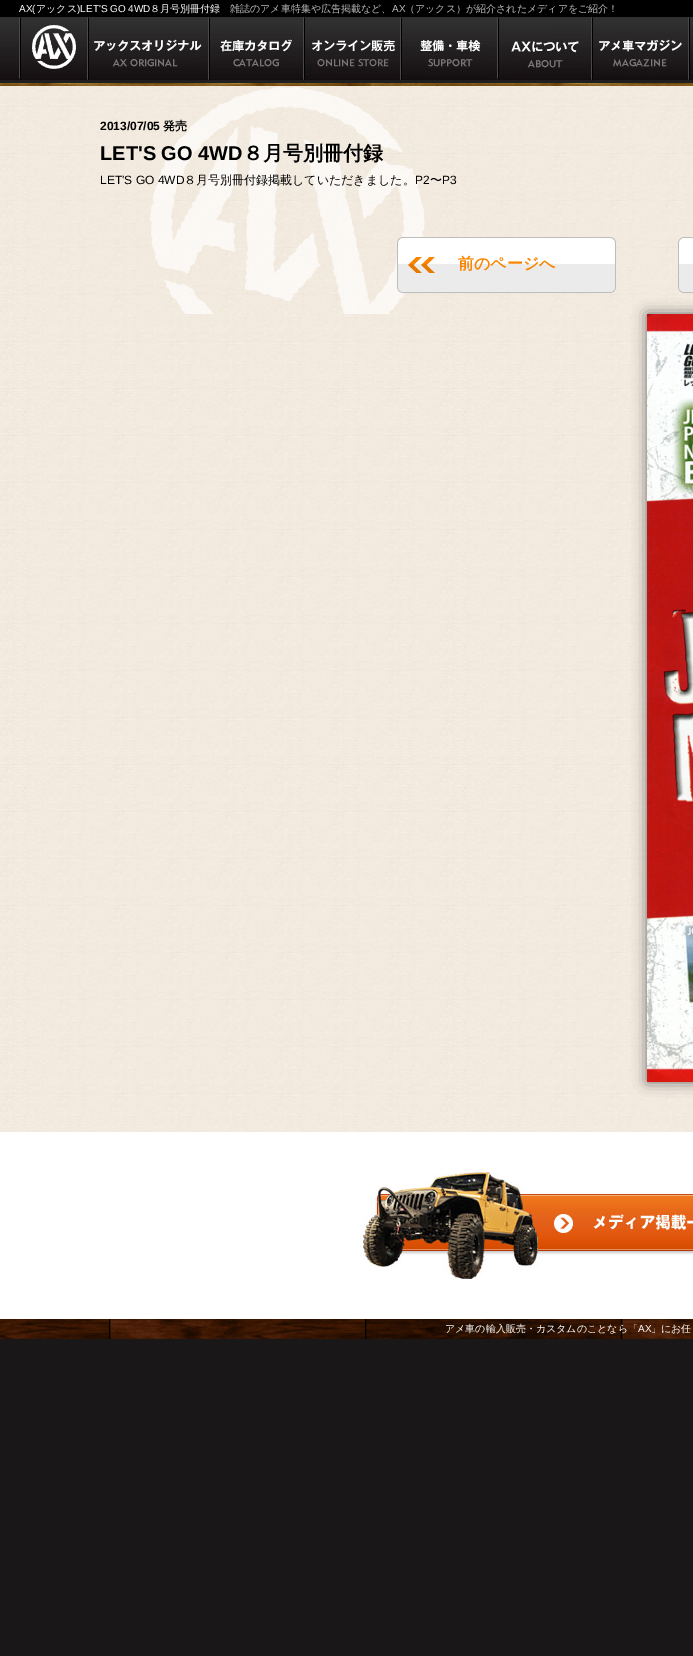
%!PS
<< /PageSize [693 1656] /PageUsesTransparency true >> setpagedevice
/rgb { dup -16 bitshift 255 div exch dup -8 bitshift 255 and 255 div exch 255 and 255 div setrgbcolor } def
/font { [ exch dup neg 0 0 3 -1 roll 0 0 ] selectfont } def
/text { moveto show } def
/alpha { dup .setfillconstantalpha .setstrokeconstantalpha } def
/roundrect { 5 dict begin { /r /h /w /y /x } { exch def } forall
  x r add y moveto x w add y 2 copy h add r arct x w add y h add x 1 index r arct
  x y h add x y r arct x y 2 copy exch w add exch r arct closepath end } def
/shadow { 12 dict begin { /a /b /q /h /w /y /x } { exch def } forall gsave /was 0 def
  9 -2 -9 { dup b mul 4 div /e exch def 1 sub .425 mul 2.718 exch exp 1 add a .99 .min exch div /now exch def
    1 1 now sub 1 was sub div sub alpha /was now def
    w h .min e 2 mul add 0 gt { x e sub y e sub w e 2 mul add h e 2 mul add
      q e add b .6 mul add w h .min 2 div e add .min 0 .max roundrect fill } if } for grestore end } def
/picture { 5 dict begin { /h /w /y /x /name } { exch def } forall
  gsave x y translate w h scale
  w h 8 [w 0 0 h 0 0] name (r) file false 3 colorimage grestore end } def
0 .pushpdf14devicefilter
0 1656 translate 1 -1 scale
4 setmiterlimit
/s1 { /LiberationSans-Regular 10 font 16#FFFFFF rgb } def
/s2 { /WenQuanYiZenHei-Medium 10 font 16#FFFFFF rgb } def
/s3 { /WenQuanYiZenHei-Medium 10 font 16#BBBBBB rgb } def
/s4 { /LiberationSans-Regular 10 font 16#BBBBBB rgb } def
/s5 { /LiberationSans-Bold 12 font 16#000000 rgb } def
/s6 { /WenQuanYiZenHei-Bold 12 font 16#000000 rgb } def
/s7 { /LiberationSans-Bold 20 font 16#000000 rgb } def
/s8 { /WenQuanYiZenHei-Bold 20 font 16#000000 rgb } def
/s9 { /LiberationSans-Regular 12 font 16#000000 rgb } def
/s10 { /WenQuanYiZenHei-Medium 12 font 16#000000 rgb } def
/s11 { /WenQuanYiZenHei-Bold 16 font 16#F98500 rgb } def
16#191718 rgb
0 0 693 1656 rectfill
(pic1.raw) 0 83 693 3 picture
16#000000 rgb
0 0 693 17 rectfill
(pic2.raw) 0 17 693 66 picture
s1
(AX\() 19 12 text
s2
(アックス) 36 12 text
s1
(\)LET'S GO 4WD) 77 12 text
s2
(８月号別冊付録) 150 12 text
s3
(雑誌のアメ車特集や広告掲載など、) 230 12 text
s4
(AX) 392 12 text
s3
(（アックス）が紹介されたメディアをご紹介！) 405 12 text
(pic3.raw) 19 17 59 64 picture
(pic4.raw) 87 17 115 63 picture
(pic5.raw) 208 17 88 63 picture
(pic6.raw) 303 17 92 63 picture
(pic7.raw) 400 17 86 64 picture
(pic8.raw) 497 17 85 64 picture
(pic9.raw) 591 17 96 64 picture
(pic10.raw) 688 17 4 64 picture
(pic11.raw) 0 86 693 1046 picture
(pic12.raw) 150 86 275 228 picture
s5
(2013/07/05) 100 130 text
s6
(発売) 163 130 text
s7
(LET'S GO 4WD) 100 160 text
s8
(８月号別冊付録) 243 160 text
s9
(LET'S GO 4WD) 100 184 text
s10
(８月号別冊付録掲載していただきました。) 184 184 text
s9
(P2) 415 184 text
s10
(〜) 430 184 text
s9
(P3) 442 184 text
(pic13.raw) 397 237 219 56 picture
s11
(前のページへ) 458 269 text
(pic14.raw) 678 237 15 56 picture
16#666666 rgb
647 314 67 768 0 7 1 shadow
(pic15.raw) 647 314 46 768 picture
16#FFFFFF rgb
0 1132 693 187 rectfill
(pic16.raw) 363 1172 330 107 picture
(pic17.raw) 0 1319 693 20 picture
s2
(アメ車の輸入販売・カスタムのことなら「) 445 1332 text
s1
(AX) 638 1332 text
s2
(」にお任) 651 1332 text
.poppdf14devicefilter showpage
